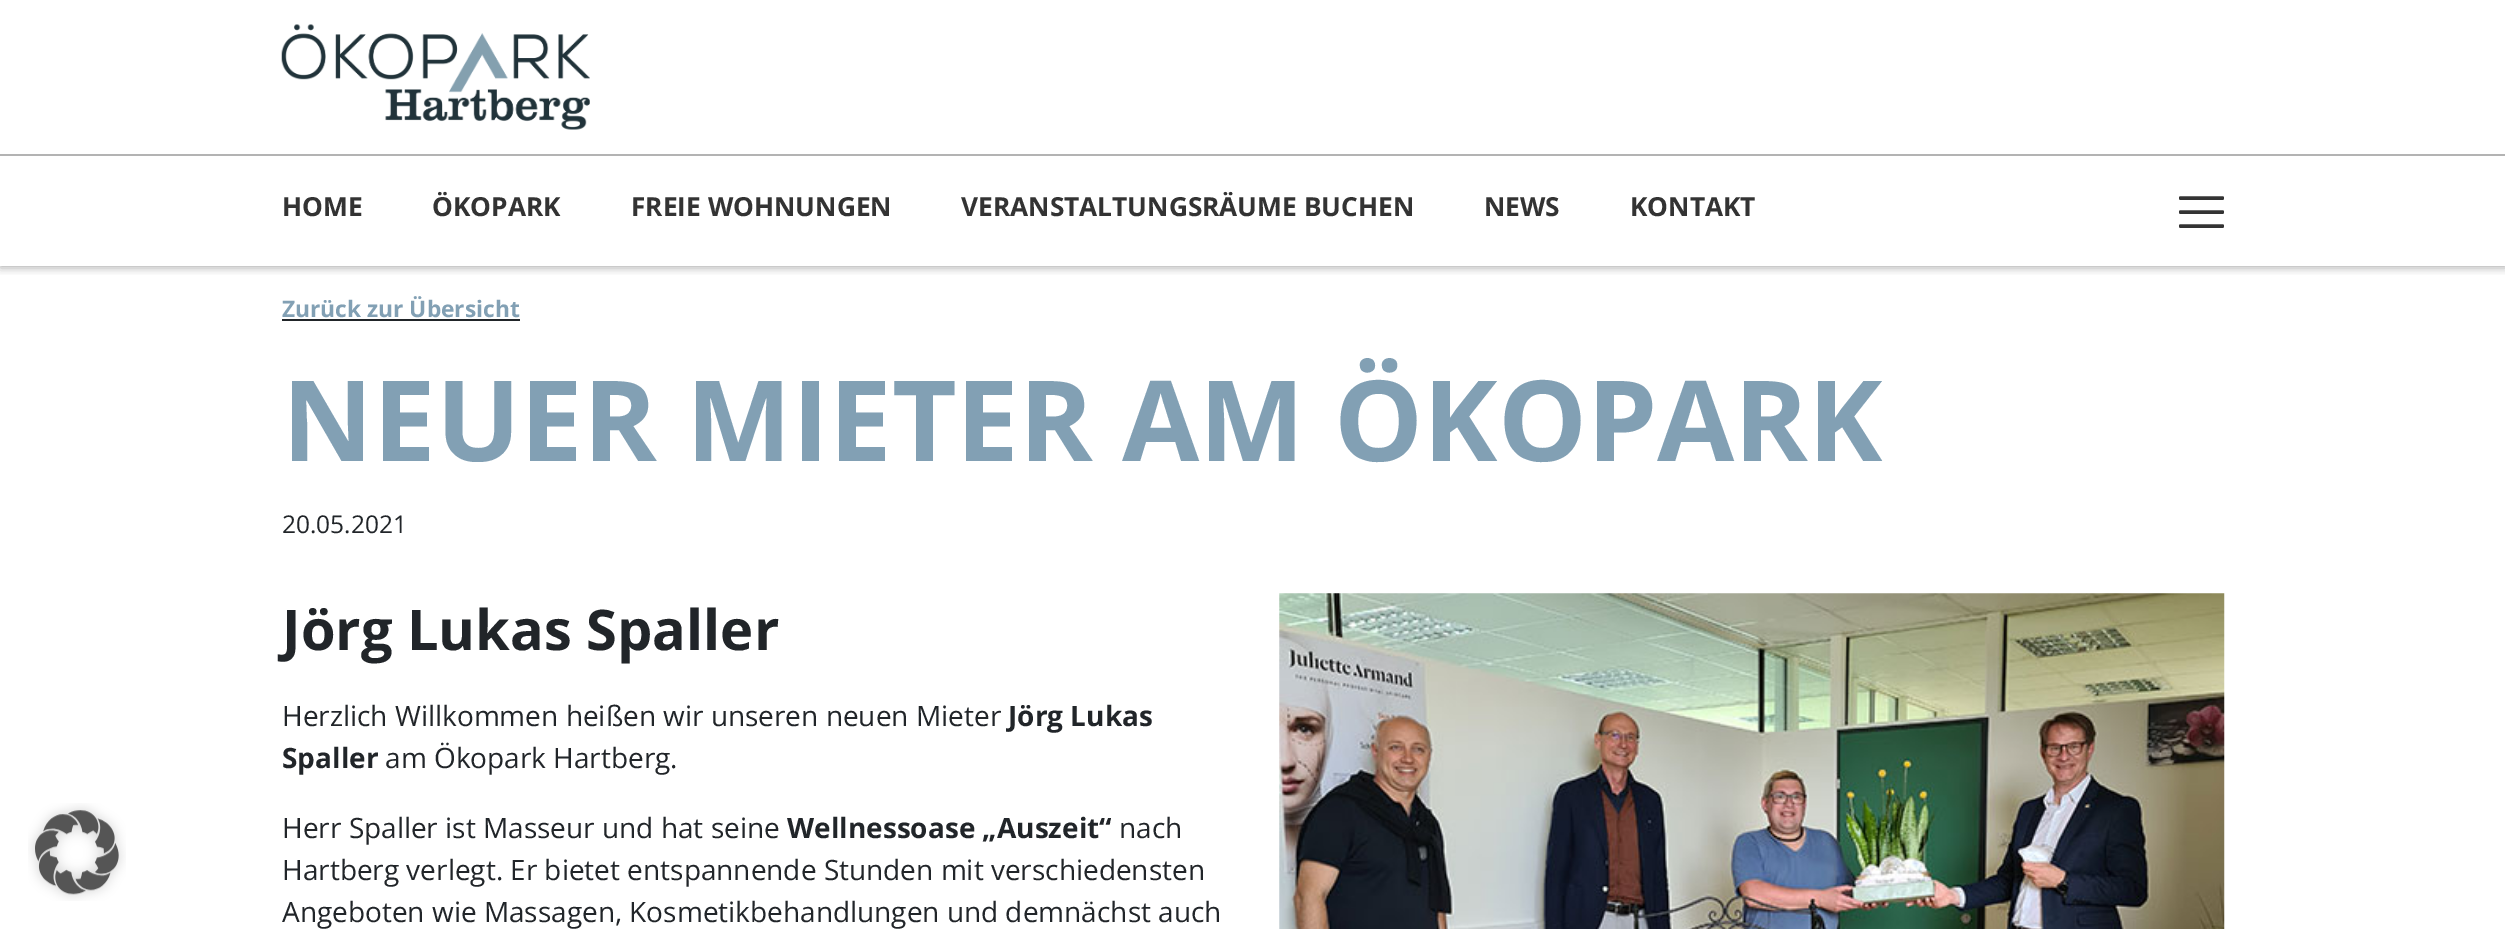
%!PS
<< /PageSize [2505 929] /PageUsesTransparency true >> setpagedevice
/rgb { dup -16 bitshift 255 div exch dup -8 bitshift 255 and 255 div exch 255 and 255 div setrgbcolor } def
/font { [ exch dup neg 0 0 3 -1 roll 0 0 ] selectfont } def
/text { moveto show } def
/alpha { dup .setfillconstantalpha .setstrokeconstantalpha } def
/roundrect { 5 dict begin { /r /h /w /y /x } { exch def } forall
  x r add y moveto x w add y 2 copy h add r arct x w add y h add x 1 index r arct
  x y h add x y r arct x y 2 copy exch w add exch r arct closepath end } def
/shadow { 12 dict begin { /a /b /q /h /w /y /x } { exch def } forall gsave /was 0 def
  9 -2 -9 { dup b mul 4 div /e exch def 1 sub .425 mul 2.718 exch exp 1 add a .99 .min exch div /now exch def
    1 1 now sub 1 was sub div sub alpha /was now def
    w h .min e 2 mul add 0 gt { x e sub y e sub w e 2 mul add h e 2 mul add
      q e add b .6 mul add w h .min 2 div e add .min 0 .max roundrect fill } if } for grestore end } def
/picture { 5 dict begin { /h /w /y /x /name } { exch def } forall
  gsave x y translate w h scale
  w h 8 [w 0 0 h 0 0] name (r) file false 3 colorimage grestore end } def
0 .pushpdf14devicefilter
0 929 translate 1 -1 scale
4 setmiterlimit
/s1 { /OpenSans-Bold 26.25 font 16#333333 rgb } def
/s2 { /OpenSans-Bold 22.75 font 16#82A0B4 rgb } def
/s3 { /OpenSans-Bold 112 font 16#82A0B4 rgb } def
/s4 { /OpenSans-Regular 24.5 font 16#212529 rgb } def
/s5 { /OpenSans-Bold 56 font 16#212529 rgb } def
/s6 { /OpenSans-Regular 28 font 16#212529 rgb } def
/s7 { /OpenSans-Bold 28 font 16#212529 rgb } def
16#FFFFFF rgb
0 0 2505 929 rectfill
gsave
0 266 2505 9 rectclip
16#000000 rgb
0 2 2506 266 0 4.5 0.3 shadow
grestore
(pic1.raw) 281 24 309 106 picture
16#B3B3B3 rgb
0 154 2505 2 rectfill
s1
(HOME) 282 216 text
(ÖKOPARK) 432 216 text
(FREIE WOHNUNGEN) 631 216 text
(VERANSTALTUNGSRÄUME BUCHEN) 961 216 text
(NEWS) 1484 216 text
(KONTAKT) 1630 216 text
gsave
2179 196 45 32 rectclip
3.5 setlinewidth
1 setlinecap
2180.5 198 moveto 2222.5 198 lineto 2180.5 212 moveto 2222.5 212 lineto 2180.5 226 moveto 2222.5 226 lineto stroke
grestore
(pic2.raw) 28 803 98 98 picture
s2
(Zurück zur Übersicht) 282 317 text
16#212529 rgb
282 319 238 2 rectfill
s3
(NEUER MIETER AM ÖKOPARK) 282 461 text
s4
(20.05.2021) 282 533 text
s5
(Jörg Lukas Spaller) 282 650 text
s6
(Herzlich Willkommen heißen wir unseren neuen Mieter) 282 726 text
s7
(Jörg Lukas) 1008 726 text
(Spaller) 282 768 text
s6
(am Ökopark Hartberg.) 385 768 text
(Herr Spaller ist Masseur und hat seine) 282 838 text
s7
(Wellnessoase „Auszeit“) 787 838 text
s6
(nach) 1119 838 text
(Hartberg verlegt. Er bietet entspannende Stunden mit verschiedensten) 282 880 text
(Angeboten wie Massagen, Kosmetikbehandlungen und demnächst auch) 282 922 text
(pic3.raw) 1279 593 946 336 picture
.poppdf14devicefilter showpage
